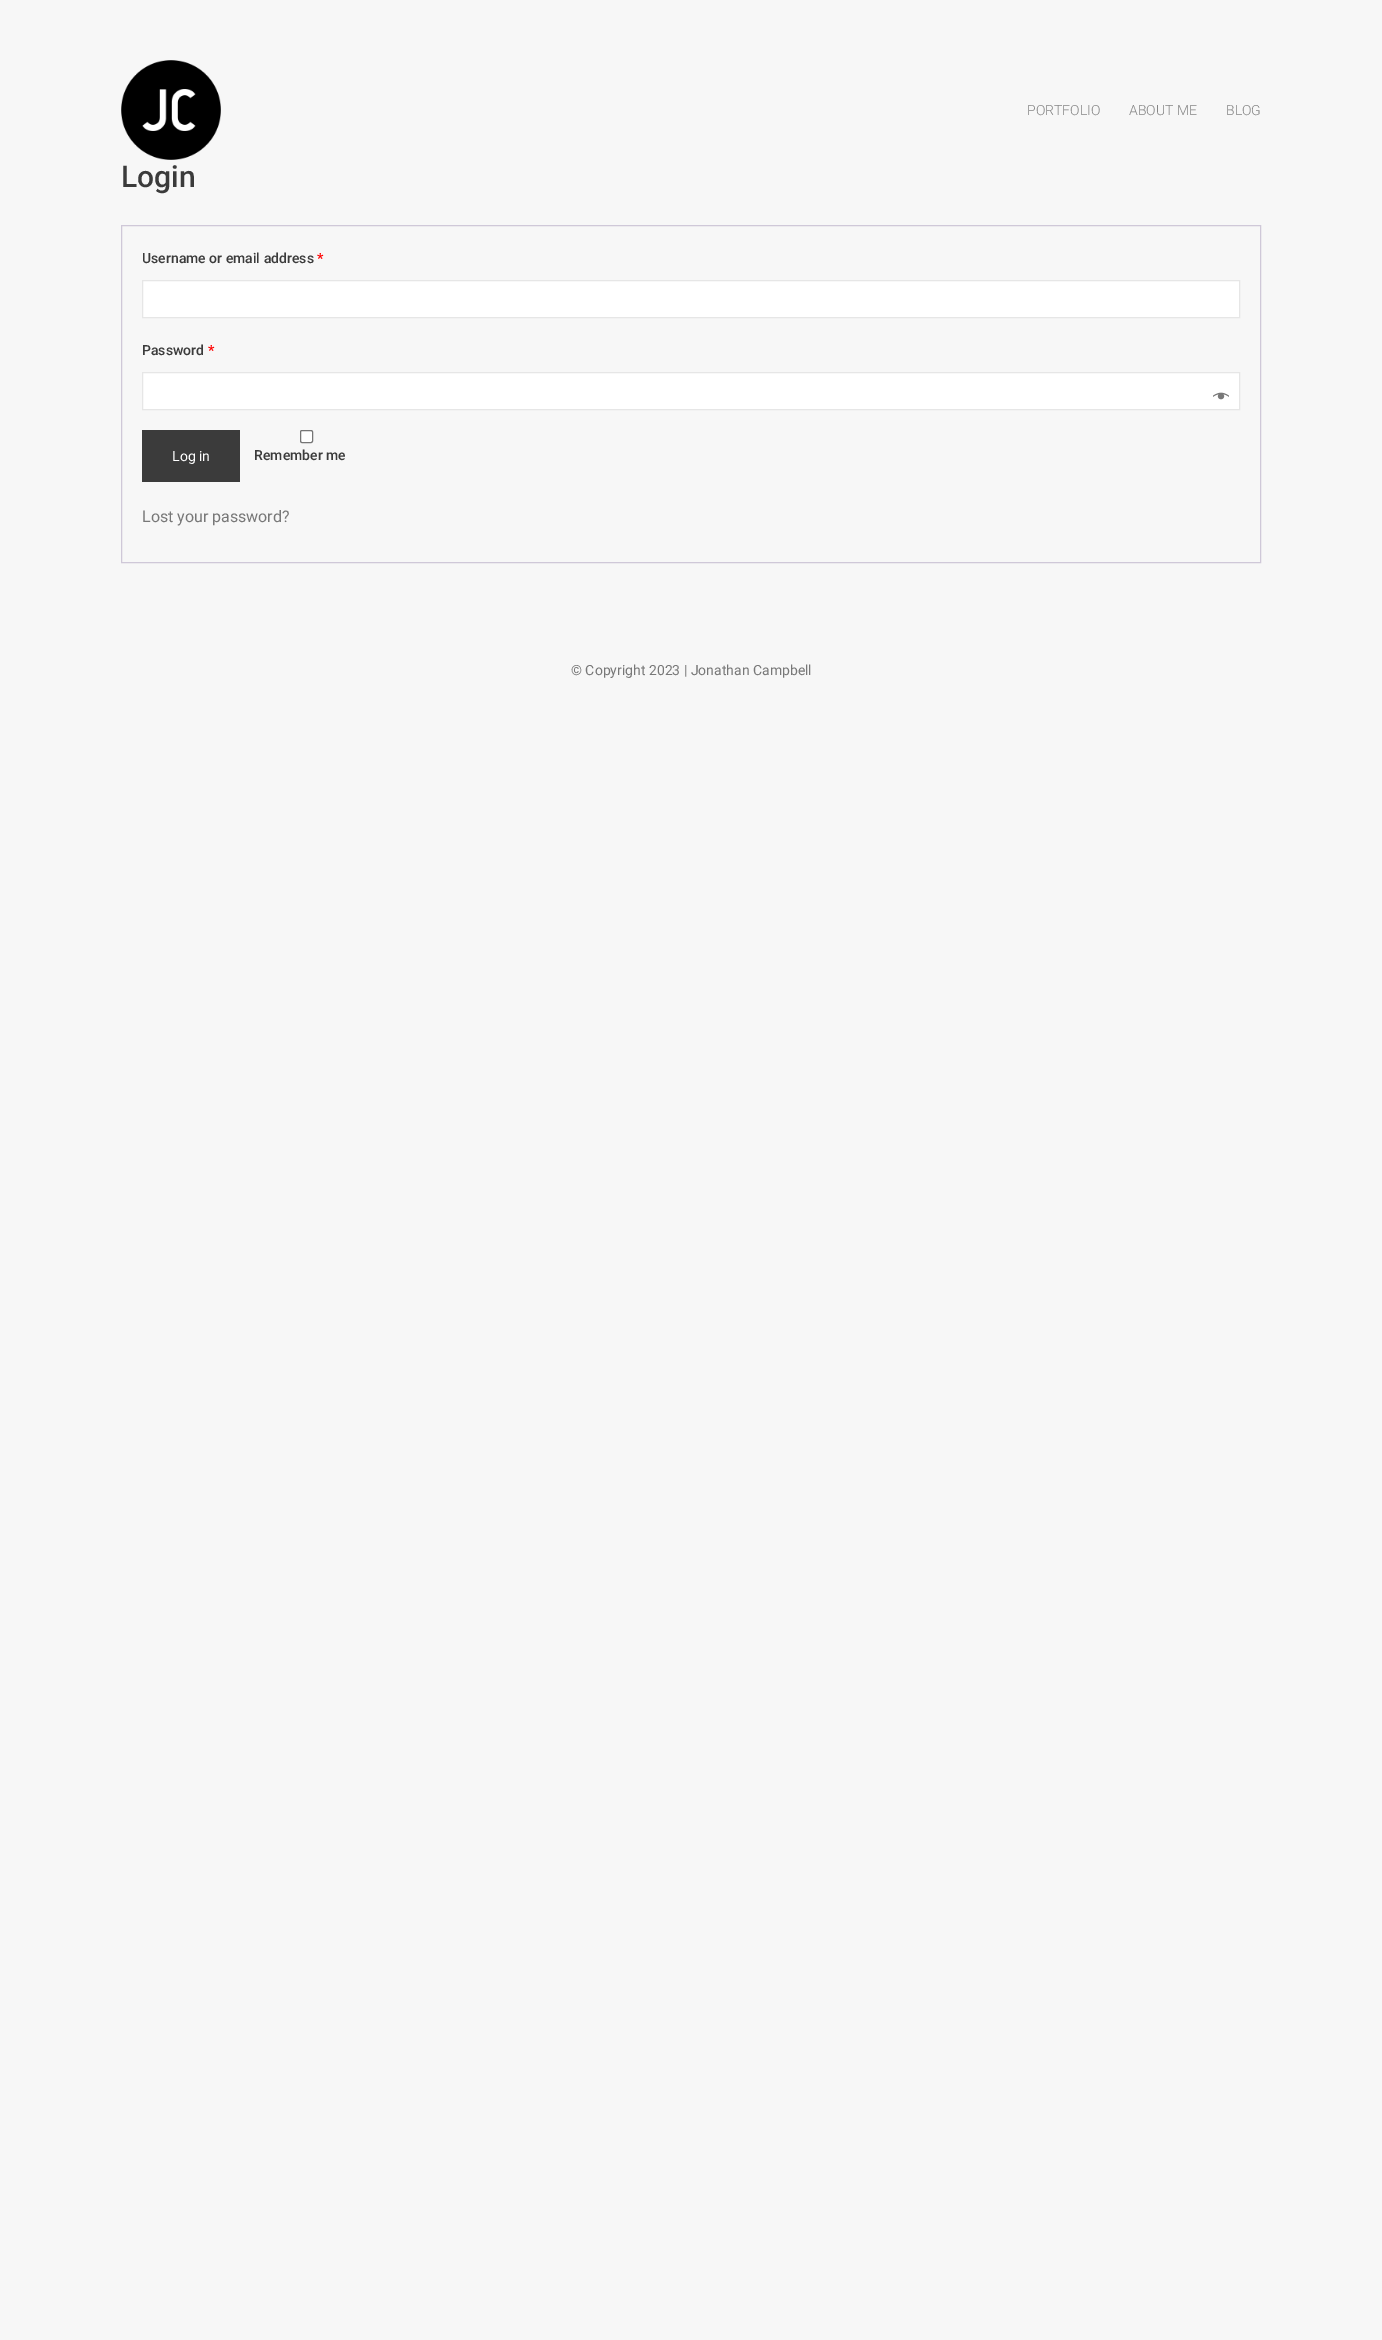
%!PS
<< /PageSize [1382 2340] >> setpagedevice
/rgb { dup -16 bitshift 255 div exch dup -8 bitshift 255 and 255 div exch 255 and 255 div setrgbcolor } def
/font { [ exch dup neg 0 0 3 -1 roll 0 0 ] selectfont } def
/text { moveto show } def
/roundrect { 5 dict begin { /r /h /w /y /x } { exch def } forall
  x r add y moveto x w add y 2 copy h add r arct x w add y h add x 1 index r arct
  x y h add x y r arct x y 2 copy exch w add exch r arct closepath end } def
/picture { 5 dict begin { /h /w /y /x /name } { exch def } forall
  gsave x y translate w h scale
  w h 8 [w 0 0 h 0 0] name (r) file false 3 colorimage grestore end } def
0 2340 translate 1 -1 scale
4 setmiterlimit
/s1 { /Roboto-Light 14 font 16#848484 rgb } def
/s2 { /Roboto-Medium 30 font 16#3B3B3B rgb } def
/s3 { /Roboto-Medium 14 font 16#3B3B3B rgb } def
/s4 { /Roboto-Bold 14 font 16#FF0000 rgb } def
/s5 { /Roboto-Regular 14 font 16#FFFFFF rgb } def
/s6 { /Roboto-Regular 16 font 16#787878 rgb } def
/s7 { /Roboto-Regular 14 font 16#787878 rgb } def
16#F7F7F7 rgb
0 0 1382 2340 rectfill
(pic1.raw) 121 60 100 100 picture
s1
(PORTFOLIO) 1027 115 text
(ABOUT ME) 1129 115 text
(BLOG) 1226 115 text
s2
(Login) 121 187 text
16#CFC8D8 rgb
121.5 225.5 1139 337 rectstroke
s3
(Username or email address) 142 263 text
s4
(*) 317 263 text
16#FFFFFF rgb
142.5 280.5 moveto 1239.5 280.5 lineto 1239.5 317.5 lineto 142.5 317.5 lineto closepath gsave fill grestore
16#E6E6E6 rgb
stroke
s3
(Password) 142 355 text
s4
(*) 208 355 text
16#FFFFFF rgb
142.5 372.5 moveto 1239.5 372.5 lineto 1239.5 409.5 lineto 142.5 409.5 lineto closepath gsave fill grestore
16#E6E6E6 rgb
stroke
(pic2.raw) 1213 392 16 8 picture
16#3B3B3B rgb
142 430 98 52 rectfill
s5
(Log in) 172 461 text
300.5 430.5 12 12 1.5 roundrect gsave fill grestore
16#767676 rgb
stroke
s3
(Remember me) 254 460 text
s6
(Lost your password?) 142 522 text
s7
(© Copyright 2023 | Jonathan Campbell) 571 675 text
showpage
